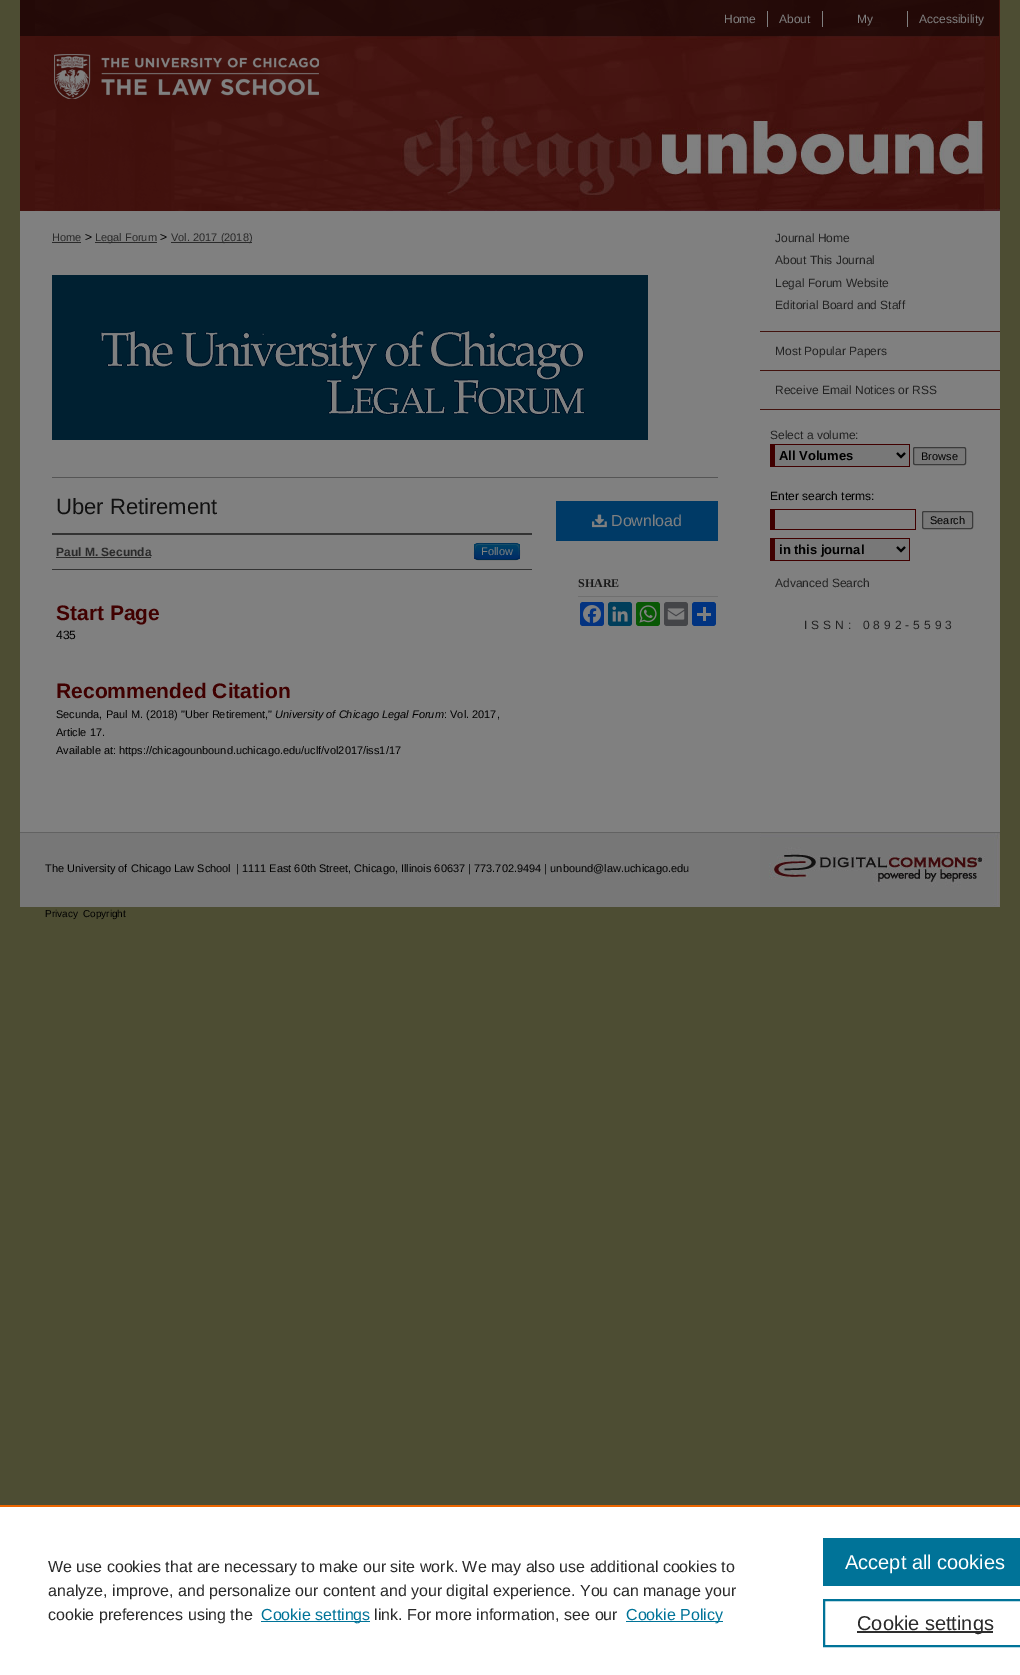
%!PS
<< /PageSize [1020 1675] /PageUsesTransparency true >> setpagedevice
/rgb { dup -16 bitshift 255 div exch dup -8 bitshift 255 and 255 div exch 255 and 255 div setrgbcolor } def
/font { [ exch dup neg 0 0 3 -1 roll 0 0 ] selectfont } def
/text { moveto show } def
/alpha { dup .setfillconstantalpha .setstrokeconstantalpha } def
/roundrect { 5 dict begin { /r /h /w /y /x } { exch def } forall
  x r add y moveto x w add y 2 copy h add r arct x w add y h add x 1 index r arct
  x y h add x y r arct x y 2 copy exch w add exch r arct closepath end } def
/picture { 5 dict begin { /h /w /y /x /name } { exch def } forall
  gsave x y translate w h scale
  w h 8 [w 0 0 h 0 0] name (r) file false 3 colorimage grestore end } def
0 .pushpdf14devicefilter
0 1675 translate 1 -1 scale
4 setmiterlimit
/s1 { /LiberationSans-Regular 12 font 16#808080 rgb } def
/s2 { /LiberationSans-Regular 11 font 16#2A2A2A rgb } def
/s3 { /LiberationSans-Regular 12 font 16#000000 rgb } def
/s4 { /LiberationSans-Regular 22 font 16#111111 rgb } def
/s5 { /LiberationSans-Bold 12 font 16#2A2A2A rgb } def
/s6 { /LiberationSans-Regular 11 font 16#808080 rgb } def
/s7 { /LiberationSans-Bold 21 font 16#400000 rgb } def
/s8 { /LiberationSans-Regular 11 font 16#000000 rgb } def
/s9 { /LiberationSans-Italic 11 font 16#000000 rgb } def
/s10 { /LiberationSans-Regular 16 font 16#808080 rgb } def
/s11 { /LiberationSerif-Bold 12 font 16#1A1A1A rgb } def
/s12 { /LiberationSans-Regular 12 font 16#222222 rgb } def
/s13 { /LiberationSans-Bold 13 font 16#000000 rgb } def
/s14 { /LiberationSans-Regular 10 font 16#000000 rgb } def
/s15 { /LiberationSans-Regular 16 font 16#2A2A2A rgb } def
/s16 { /LiberationSans-Regular 16 font 16#007398 rgb } def
/s17 { /LiberationSans-Regular 20 font 16#FFFFFF rgb } def
/s18 { /LiberationSans-Regular 20 font 16#2A2A2A rgb } def
16#4D4D33 rgb
0 0 1020 1675 rectfill
16#42120E rgb
20 36 15 175 rectfill
16#230907 rgb
20 0 15 36 rectfill
(pic1.raw) 35 0 965 36 picture
16#808080 rgb
767 11 1 16 rectfill
s1
(Home) 724 23 text
822 11 1 16 rectfill
(About) 779 23 text
16#240A08 rgb
860 23 21 4 rectfill
16#808080 rgb
907 11 1 16 rectfill
(My) 857 23 text
(Accessibility) 919 23 text
(pic2.raw) 35 36 315 175 picture
(pic3.raw) 350 36 650 175 picture
20 211 980 621 rectfill
s2
(Home) 52 241 text
52 242 29 1 rectfill
s3
(>) 85 241 text
16#2A2A2A rgb
95 242 62 1 rectfill
s2
(Legal Forum) 95 241 text
s3
(>) 160 241 text
16#2A2A2A rgb
171 242 81 1 rectfill
s2
(Vol. 2017 \(2018\)) 171 241 text
(pic4.raw) 52 275 596 165 picture
16#555555 rgb
52 477 666 1 rectfill
s4
(Uber Retirement) 56 514 text
16#333333 rgb
52 533 480 2 rectfill
52 569 480 1 rectfill
s5
(Paul M. Secunda) 56 556 text
56 557 95 1 rectfill
16#003A66 rgb
474 543 46 17 4 roundrect fill
gsave
474 543 46 17 4 roundrect clip newpath
gsave 474 544 moveto 520 544 lineto 520 559 lineto 474 559 lineto closepath clip newpath
<< /ShadingType 2 /ColorSpace /DeviceRGB /Coords [497 544 497 559] /Extend [true true] /Function << /FunctionType 2 /Domain [0 1] /C0 [0 0.267 0.4] /C1 [0 0.169 0.4] /N 1 >> >> shfill grestore
grestore
0.2 alpha
16#808080 rgb
478 545 moveto 503 545 lineto 517 545 519 541 519 556 curveto 519 545 522 544 510 544 curveto 484 544 lineto 477 544 475 543 475 550 curveto 475 557 lineto 475 554 474 545 478 545 curveto closepath fill
0.25 alpha
16#000000 rgb
518.5 558.5 moveto 518 559 517 559.5 516 559.5 curveto 478 559.5 lineto 477 559.5 476 559 475.5 558.5 curveto stroke
0.1 alpha
475.5 558.5 moveto 474 556.5 474.5 553.5 474.5 551.5 curveto 474.5 542.5 475 543.5 484.5 543.5 curveto 509.5 543.5 lineto 519 543.5 519.5 542.5 519.5 551.5 curveto 519.5 553.5 520 556.5 518.5 558.5 curveto stroke
1 alpha
s6
(Follow) 481 555 text
s7
(Start Page) 56 620 text
s3
(435) 56 639 text
s7
(Recommended Citation) 56 698 text
s8
(Secunda, Paul M. \(2018\) "Uber Retirement,") 56 718 text
s9
(University of Chicago Legal Forum) 275 718 text
s8
(: Vol. 2017,) 444 718 text
(Article 17.) 56 736 text
(Available at: https://chicagounbound.uchicago.edu/uclf/vol2017/iss1/17) 56 754 text
16#003A66 rgb
556 501 162 40 rectfill
(pic5.raw) 592 514 15 14 picture
s10
(Download) 611 526 text
16#6F6F6F rgb
578 596 140 1 rectfill
s11
(SHARE) 578 587 text
16#043380 rgb
580 602 24 24 3 roundrect fill
(pic6.raw) 583 605 18 18 picture
16#003E5B rgb
608 602 24 24 3 roundrect fill
(pic7.raw) 612 606 16 16 picture
16#095805 rgb
636 602 24 24 3 roundrect fill
(pic8.raw) 639 605 18 18 picture
16#444548 rgb
664 602 24 24 3 roundrect fill
(pic9.raw) 667 608 18 12 picture
16#013380 rgb
692 602 24 24 3 roundrect fill
16#808080 rgb
703 607 3 14 rectfill
697 613 14 3 rectfill
s12
(Journal Home) 775 242 text
(About This Journal) 775 264 text
(Legal Forum Website) 775 287 text
(Editorial Board and Staff) 775 309 text
16#42120E rgb
760 331 240 1 rectfill
760 370 240 1 rectfill
s12
(Most Popular Papers) 775 355 text
16#42120E rgb
760 409 240 1 rectfill
s12
(Receive Email Notices or RSS) 775 394 text
(Select a volume:) 770 439 text
16#787878 rgb
775 445 134 21 rectfill
16#400000 rgb
770 444 140 1 rectfill
909 444 1 23 rectfill
770 466 140 1 rectfill
770 444 5 23 rectfill
16#000000 rgb
2 setlinewidth
897 453 moveto 901 457 lineto 905 453 lineto stroke
s13
(All Volumes) 779 460 text
16#787878 rgb
913.5 447.5 52 17 1.5 roundrect gsave fill grestore
16#3B3B3B rgb
1 setlinewidth
stroke
s8
(Browse) 921 460 text
s3
(Enter search terms:) 770 500 text
16#400000 rgb
770 509 146 1 rectfill
915 509 1 21 rectfill
770 529 146 1 rectfill
770 509 5 21 rectfill
16#787878 rgb
922.5 511.5 50 17 1.5 roundrect gsave fill grestore
16#3B3B3B rgb
stroke
s8
(Search) 930 524 text
16#787878 rgb
775 539 134 21 rectfill
16#400000 rgb
770 538 140 1 rectfill
909 538 1 23 rectfill
770 560 140 1 rectfill
770 538 5 23 rectfill
16#000000 rgb
2 setlinewidth
897 547 moveto 901 551 lineto 905 547 lineto stroke
s13
(in this journal) 779 554 text
s12
(Advanced Search) 775 587 text
804 629 moveto 4 0 (ISSN: 0892-5593) ashow
16#777777 rgb
20 833 980 74 rectfill
16#626262 rgb
20 832 980 1 rectfill
s8
(The University of Chicago Law School) 45 872 text
(| 1111 East 60th Street, Chicago, Illinois 60637 | 773.702.9494 | unbound@law.uchicago.edu) 236 872 text
s14
(Privacy) 45 917 text
(Copyright) 83 917 text
(pic10.raw) 760 833 240 73 picture
16#FFFFFF rgb
0 1507 1020 168 rectfill
16#EB6500 rgb
0 1505 1020 2 rectfill
s15
(We use cookies that are necessary to make our site work. We may also use additional cookies to) 48 1572 text
(analyze, improve, and personalize our content and your digital experience. You can manage your) 48 1596 text
(cookie preferences using the) 48 1620 text
16#007398 rgb
261 1621 109 1 rectfill
(Cookie settings) 261 1620 text
s15
(link. For more information, see our) 374 1620 text
16#007398 rgb
626 1621 97 1 rectfill
(Cookie Policy) 626 1620 text
823 1538 197 48 rectfill
s17
(Accept all cookies) 845 1569 text
16#007398 rgb
824 1600 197 46 rectstroke
16#2E2E2E rgb
857 1631 136 2 rectfill
s18
(Cookie settings) 857 1630 text
.poppdf14devicefilter showpage
